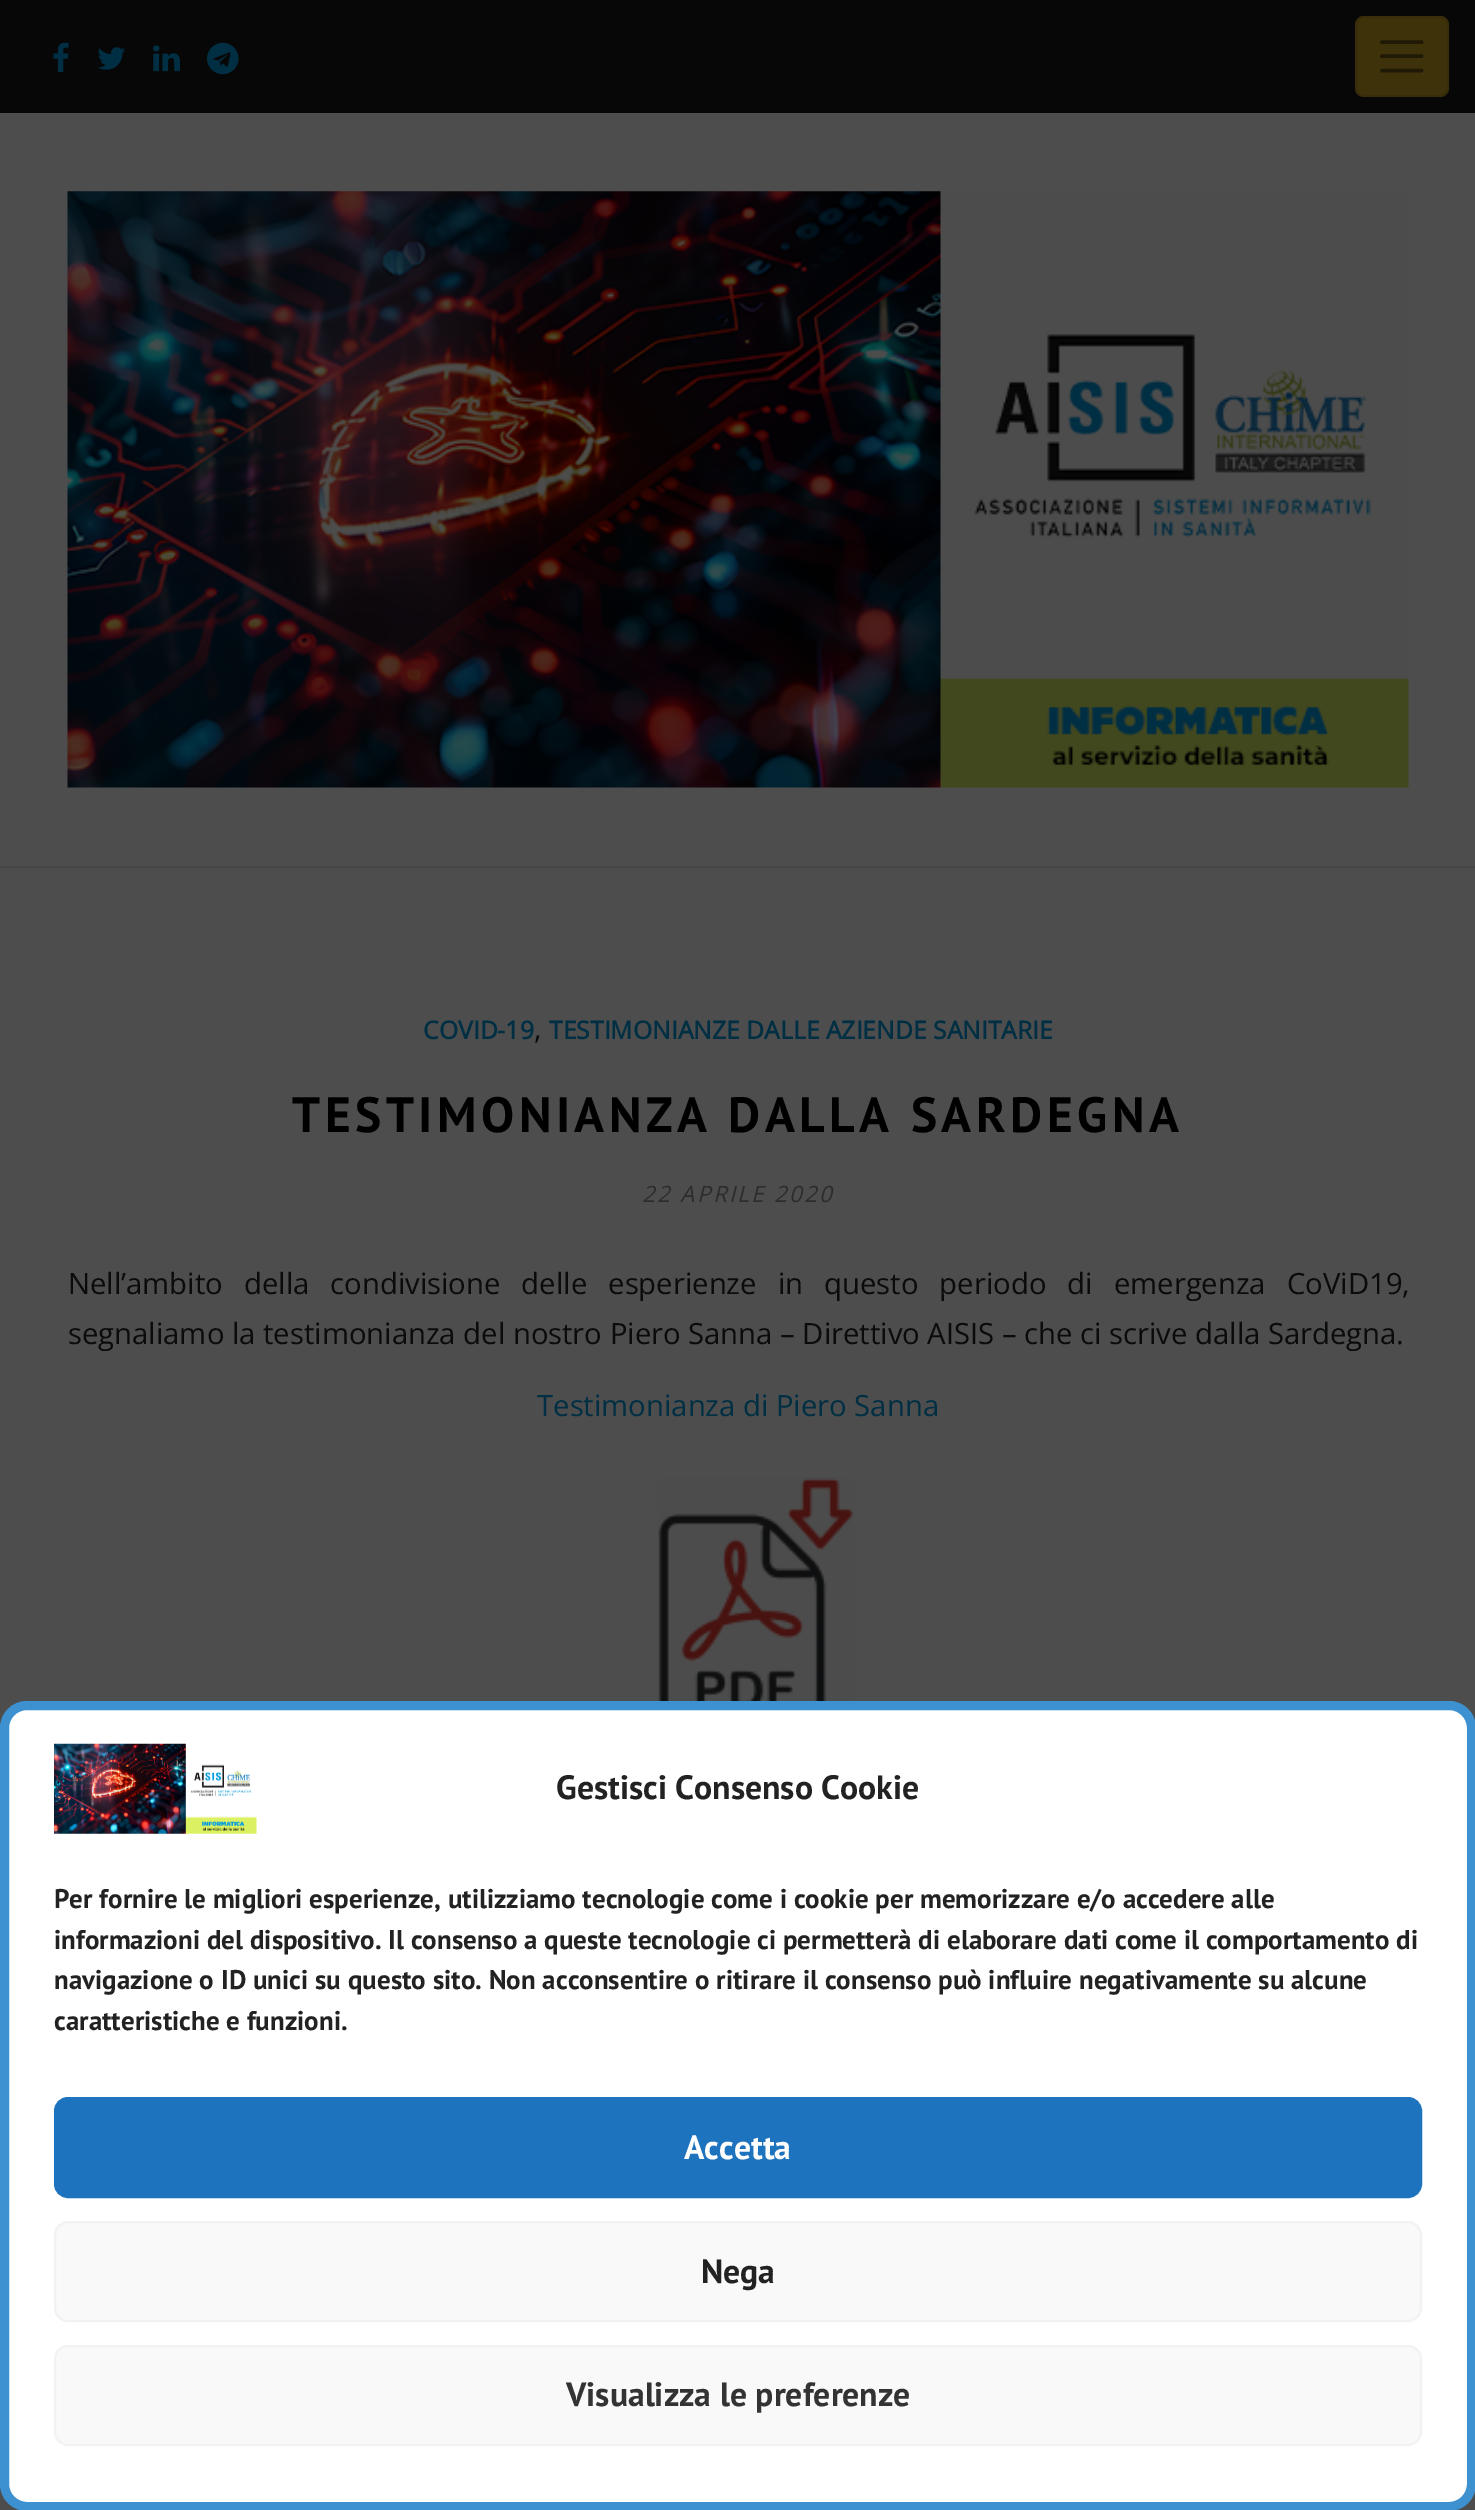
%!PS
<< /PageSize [1475 2510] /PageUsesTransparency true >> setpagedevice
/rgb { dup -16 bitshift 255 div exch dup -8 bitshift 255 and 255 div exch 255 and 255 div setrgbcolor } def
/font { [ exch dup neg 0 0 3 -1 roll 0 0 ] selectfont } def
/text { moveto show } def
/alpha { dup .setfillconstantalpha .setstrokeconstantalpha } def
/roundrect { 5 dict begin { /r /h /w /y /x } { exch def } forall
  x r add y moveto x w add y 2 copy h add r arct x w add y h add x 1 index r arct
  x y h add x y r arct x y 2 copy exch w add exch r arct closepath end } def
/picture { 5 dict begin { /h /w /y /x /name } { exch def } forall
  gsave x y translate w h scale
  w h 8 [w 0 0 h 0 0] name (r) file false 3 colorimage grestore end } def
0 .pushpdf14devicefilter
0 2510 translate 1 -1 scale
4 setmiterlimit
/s1 { /OpenSans-Bold 24.75 font 16#002F43 rgb } def
/s2 { /OpenSans-Regular 29.25 font 16#0A0B0C rgb } def
/s3 { /OpenSans-Regular 29.25 font 16#002F43 rgb } def
/s4 { /PTSans-Bold 33.75 font 16#222222 rgb } def
/s5 { /PTSans-Bold 27 font 16#222222 rgb } def
/s6 { /PTSans-Bold 33.75 font 16#FFFFFF rgb } def
/s7 { /PTSans-Bold 33.75 font 16#333333 rgb } def
16#4D4D4D rgb
0 0 1475 2510 rectfill
16#070707 rgb
0 0 1475 113 rectfill
(pic1.raw) 53 42 16 30 picture
(pic2.raw) 97 47 28 23 picture
(pic3.raw) 153 45 27 27 picture
(pic4.raw) 207 42 32 33 picture
16#3E320B rgb
1355 16 94 81 9 roundrect fill
0.1 alpha
16#000000 rgb
2 setlinewidth
1356 17 92 79 8 roundrect stroke
1 alpha
16#1F1906 rgb
3.6 setlinewidth
1 setlinecap
1382 42 moveto 1421.5 42 lineto 1382 56 moveto 1421.5 56 lineto 1382 70.5 moveto 1421.5 70.5 lineto stroke
16#474747 rgb
0 866 1475 2 rectfill
(pic5.raw) 67 191 1342 597 picture
s1
(COVID-19) 423 1039 text
s2
(,) 534 1039 text
s1
(TESTIMONIANZE DALLE AZIENDE SANITARIE) 549 1039 text
/PTSans-Bold 49.5 font
16#000000 rgb
292 1132 moveto 4.5 0 (TESTIMONIANZA DALLA SARDEGNA) ashow
/OpenSans-Italic 22.5 font
16#2C2C2C rgb
642 1202 moveto 2.25 0 (22 APRILE 2020) ashow
/OpenSans-Regular 29.25 font
16#0A0B0C rgb
68 1294 moveto 13.5 0 32 (Nell’ambito della condivisione delle esperienze in questo periodo di emergenza CoViD19,) widthshow
(segnaliamo la testimonianza del nostro Piero Sanna – Direttivo AISIS – che ci scrive dalla Sardegna.) 68 1344 text
s3
(Testimonianza di Piero Sanna) 537 1416 text
(pic6.raw) 658 1477 196 224 picture
16#FFFFFF rgb
4.5 1705.5 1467 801 22.5 roundrect gsave fill grestore
16#3E91D1 rgb
9 setlinewidth
0 setlinecap
stroke
(pic7.raw) 54 1743 203 91 picture
s4
(Gestisci Consenso Cookie) 556 1799 text
s5
(Per fornire le migliori esperienze, utilizziamo tecnologie come i cookie per memorizzare e/o accedere alle) 54 1908 text
(informazioni del dispositivo. Il consenso a queste tecnologie ci permetterà di elaborare dati come il comportamento di) 54 1949 text
(navigazione o ID unici su questo sito. Non acconsentire o ritirare il consenso può influire negativamente su alcune) 54 1989 text
(caratteristiche e funzioni.) 54 2030 text
16#1E73BE rgb
55 2098 1366 99 13 roundrect gsave fill grestore
2 setlinewidth
stroke
s6
(Accetta) 684 2159 text
16#F9F9F9 rgb
55 2222 1366 99 13 roundrect gsave fill grestore
16#F2F2F2 rgb
stroke
s4
(Nega) 701 2283 text
16#F9F9F9 rgb
55 2346 1366 99 13 roundrect gsave fill grestore
16#F2F2F2 rgb
stroke
s7
(Visualizza le preferenze) 566 2406 text
.poppdf14devicefilter showpage
